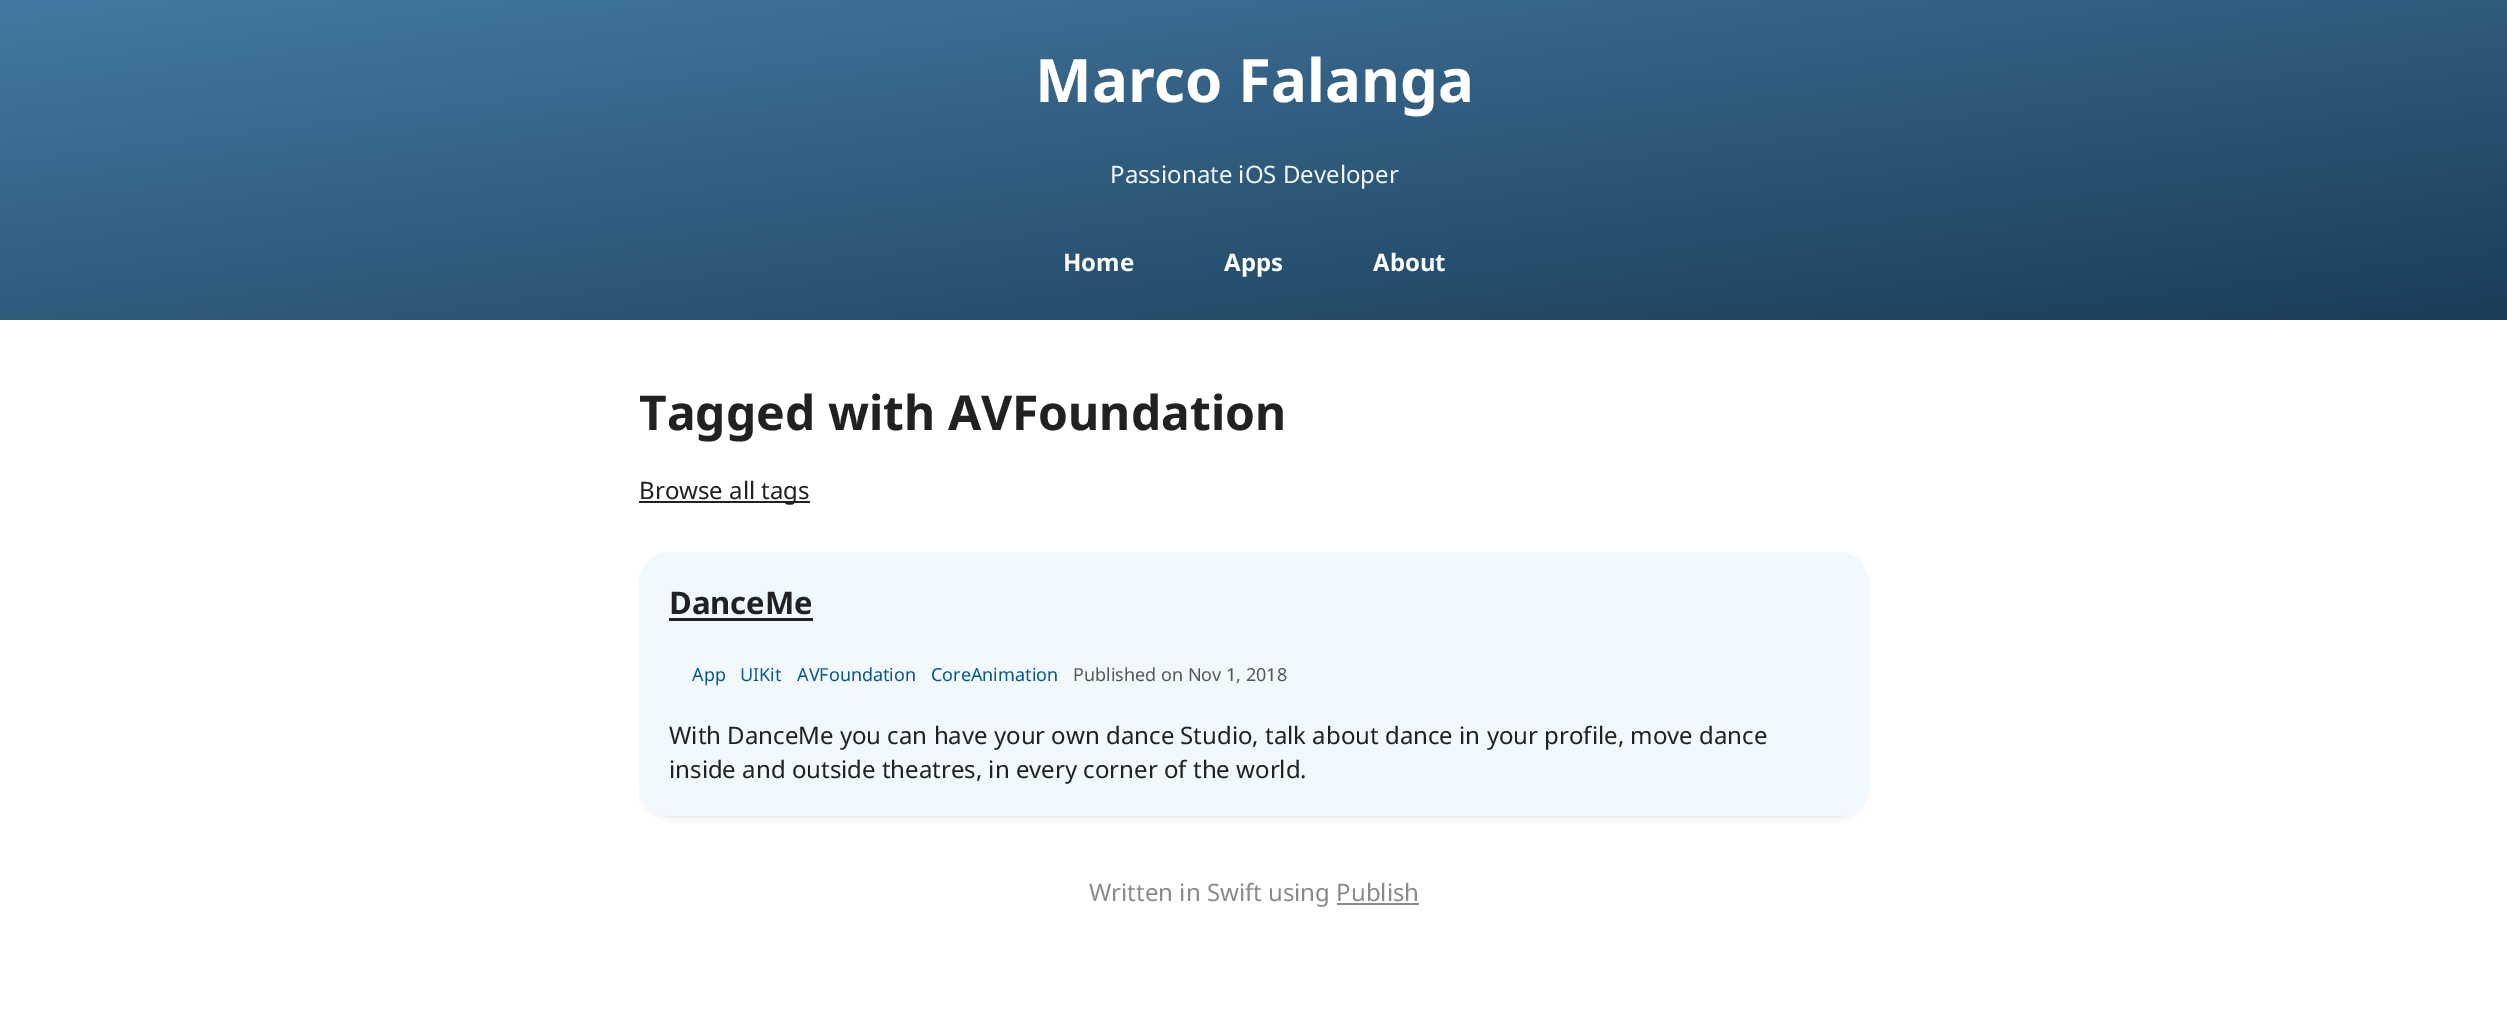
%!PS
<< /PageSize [2507 1027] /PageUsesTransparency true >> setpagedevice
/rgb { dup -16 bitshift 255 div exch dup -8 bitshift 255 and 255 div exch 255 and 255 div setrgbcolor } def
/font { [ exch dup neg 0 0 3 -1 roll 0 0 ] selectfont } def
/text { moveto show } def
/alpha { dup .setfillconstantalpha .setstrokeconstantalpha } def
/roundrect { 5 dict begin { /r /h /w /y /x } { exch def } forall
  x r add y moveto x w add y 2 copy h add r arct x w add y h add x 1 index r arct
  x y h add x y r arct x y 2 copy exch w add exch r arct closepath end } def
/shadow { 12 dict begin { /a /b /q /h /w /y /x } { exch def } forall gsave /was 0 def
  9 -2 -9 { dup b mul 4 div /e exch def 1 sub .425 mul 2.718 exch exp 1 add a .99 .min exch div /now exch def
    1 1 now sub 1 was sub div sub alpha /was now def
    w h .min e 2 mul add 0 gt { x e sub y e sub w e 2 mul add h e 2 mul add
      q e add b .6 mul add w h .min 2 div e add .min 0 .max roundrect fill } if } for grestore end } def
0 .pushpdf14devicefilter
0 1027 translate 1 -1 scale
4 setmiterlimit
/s1 { /NotoSans-Bold 60 font 16#FFFFFF rgb } def
/s2 { /NotoSans-Regular 24 font 16#F1F9FF rgb } def
/s3 { /NotoSans-Bold 24 font 16#FFFFFF rgb } def
/s4 { /NotoSans-Bold 48 font 16#212121 rgb } def
/s5 { /NotoSans-Regular 24 font 16#212121 rgb } def
/s6 { /NotoSans-Bold 31 font 16#212121 rgb } def
/s7 { /NotoSans-Regular 18 font 16#06568F rgb } def
/s8 { /NotoSans-Regular 18 font 16#555555 rgb } def
/s9 { /NotoSans-Regular 24 font 16#8A8A8A rgb } def
16#FFFFFF rgb
0 0 2507 1027 rectfill
gsave 0 0 moveto 2507 0 lineto 2507 320 lineto 0 320 lineto closepath clip newpath
<< /ShadingType 2 /ColorSpace /DeviceRGB /Coords [1214 -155 1294 474] /Extend [true true] /Function << /FunctionType 2 /Domain [0 1] /C0 [0.267 0.475 0.631] /C1 [0.102 0.239 0.349] /N 1 >> >> shfill grestore
s1
(Marco Falanga) 1035 102 text
s2
(Passionate iOS Developer) 1110 183 text
s3
(Home) 1063 271 text
(Apps) 1224 271 text
(About) 1373 271 text
s4
(Tagged with AVFoundation) 639 430 text
639 501 171 2 rectfill
s5
(Browse all tags) 639 499 text
16#808080 rgb
651 570 1206 240 18 6 1 shadow
16#F1F9FF rgb
639 552 1230 264 30 roundrect fill
s6
(DanceMe) 669 614 text
669 618 144 3 rectfill
s7
(App) 692 681 text
(UIKit) 740 681 text
(AVFoundation) 797 681 text
(CoreAnimation) 931 681 text
s8
(Published on Nov 1, 2018) 1073 681 text
s5
(With DanceMe you can have your own dance Studio, talk about dance in your profile, move dance) 669 744 text
(inside and outside theatres, in every corner of the world.) 669 778 text
s9
(Written in Swift using Publish) 1089 901 text
1337 903 82 2 rectfill
.poppdf14devicefilter showpage
